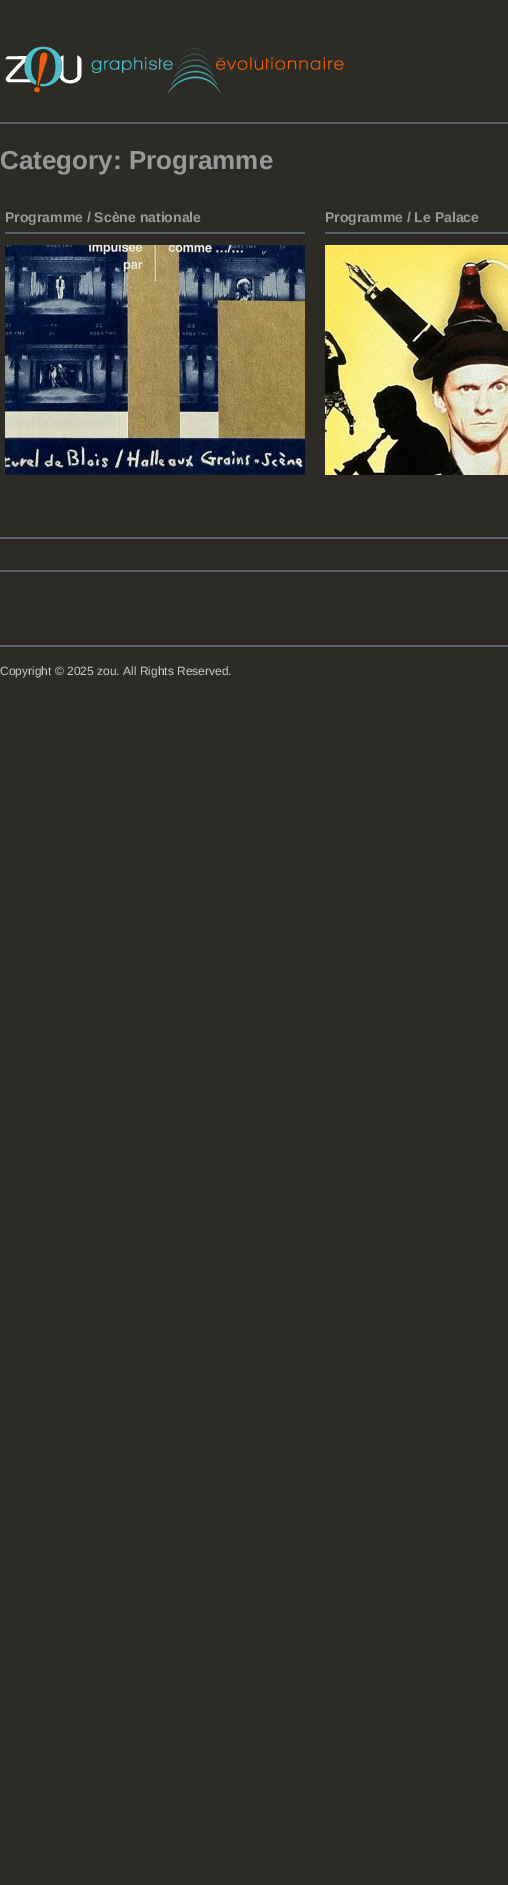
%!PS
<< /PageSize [508 1885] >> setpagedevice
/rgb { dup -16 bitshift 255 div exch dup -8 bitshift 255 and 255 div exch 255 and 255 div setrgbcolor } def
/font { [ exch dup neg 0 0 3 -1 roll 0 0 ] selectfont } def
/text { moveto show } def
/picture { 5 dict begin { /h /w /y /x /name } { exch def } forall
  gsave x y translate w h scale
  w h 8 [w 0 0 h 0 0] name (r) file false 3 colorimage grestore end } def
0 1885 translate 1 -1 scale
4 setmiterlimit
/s1 { /LiberationSans-Bold 26 font 16#999999 rgb } def
/s2 { /LiberationSans-Bold 14 font 16#999999 rgb } def
/s3 { /LiberationSans-Regular 12 font 16#CCCCCC rgb } def
16#2D2B26 rgb
0 0 508 1885 rectfill
16#58626A rgb
0 122 508 2 rectfill
(pic1.raw) 5 46 339 47 picture
s1
(Category: Programme) 0 169 text
16#58626A rgb
5 232 300 2 rectfill
s2
(Programme / Scène nationale) 5 222 text
(pic2.raw) 5 245 300 230 picture
16#58626A rgb
325 232 183 2 rectfill
s2
(Programme / Le Palace) 325 222 text
(pic3.raw) 325 245 183 230 picture
16#58626A rgb
0 537 508 2 rectfill
0 570 508 2 rectfill
0 645 508 2 rectfill
s3
(Copyright © 2025 zou. All Rights Reserved.) 0 675 text
showpage
